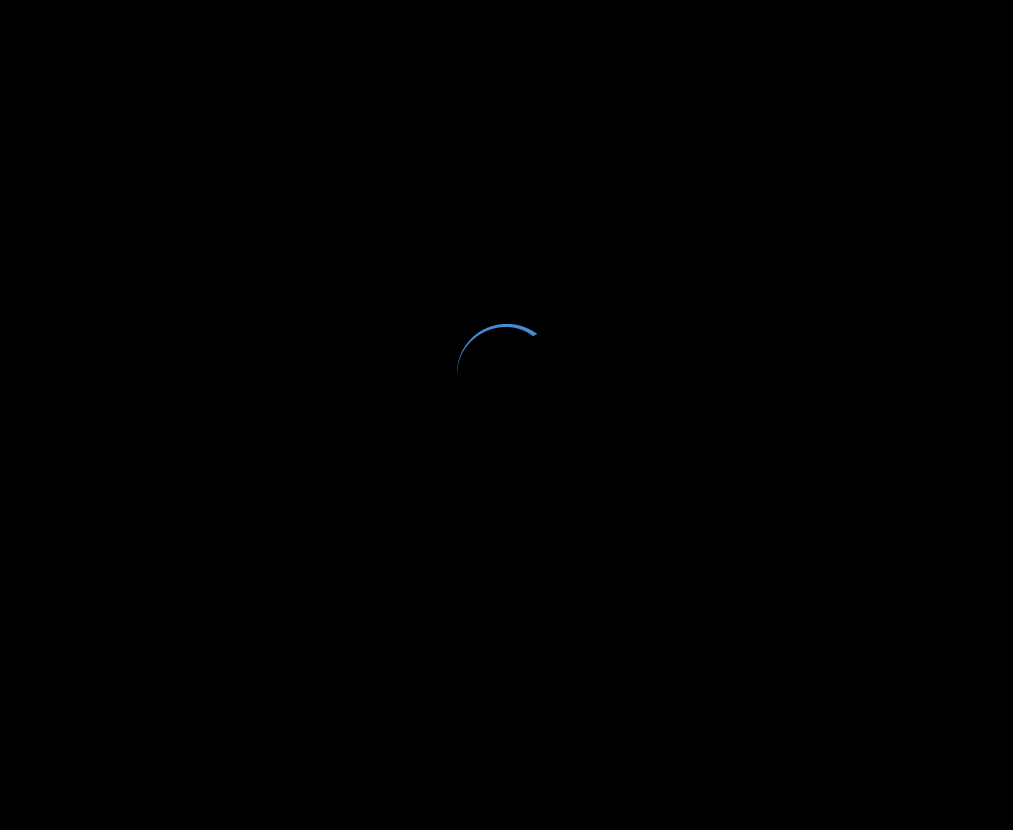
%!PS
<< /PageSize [1013 830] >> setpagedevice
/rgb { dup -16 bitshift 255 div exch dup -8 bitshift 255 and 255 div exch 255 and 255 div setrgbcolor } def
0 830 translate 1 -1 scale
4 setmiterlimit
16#000000 rgb
0 0 1013 830 rectfill
16#448BD6 rgb
507 324 moveto 479 324 457 346 457 374 curveto 457 336 503 313 533 336 curveto 537 334 lineto 529 328 518 324 507 324 curveto closepath fill
showpage
